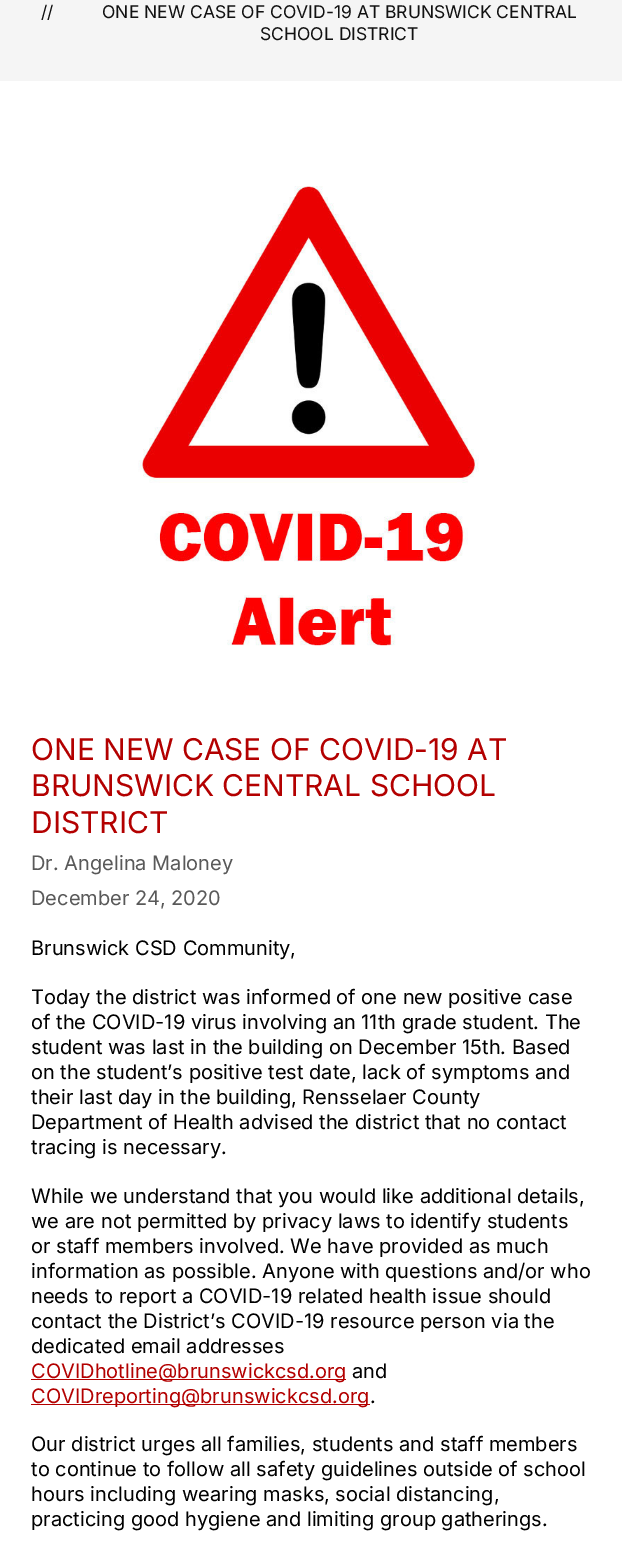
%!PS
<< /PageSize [622 1548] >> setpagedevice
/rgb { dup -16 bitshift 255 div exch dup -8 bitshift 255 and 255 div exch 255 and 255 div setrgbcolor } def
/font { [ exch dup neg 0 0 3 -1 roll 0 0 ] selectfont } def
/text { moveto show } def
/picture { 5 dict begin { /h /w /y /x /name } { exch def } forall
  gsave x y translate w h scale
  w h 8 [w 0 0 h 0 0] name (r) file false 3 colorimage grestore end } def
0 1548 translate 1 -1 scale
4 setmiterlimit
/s1 { /Inter-Regular 17.5 font 16#111111 rgb } def
/s2 { /Inter-Regular 30 font 16#B30000 rgb } def
/s3 { /Inter-Regular 20 font 16#595959 rgb } def
/s4 { /Inter-Regular 20 font 16#000000 rgb } def
/s5 { /Inter-Regular 20 font 16#B30000 rgb } def
16#FFFFFF rgb
0 0 622 1548 rectfill
16#F5F5F5 rgb
0 0 622 81 rectfill
s1
(//) 41 18 text
(ONE NEW CASE OF COVID-19 AT BRUNSWICK CENTRAL) 102 18 text
(SCHOOL DISTRICT) 260 40 text
(pic1.raw) 138 186 341 460 picture
s2
(ONE NEW CASE OF COVID-19 AT) 31 760 text
(BRUNSWICK CENTRAL SCHOOL) 31 796 text
(DISTRICT) 31 833 text
s3
(Dr. Angelina Maloney) 31 870 text
(December 24, 2020) 31 905 text
s4
(Brunswick CSD Community,) 31 955 text
(Today the district was informed of one new positive case) 31 1004 text
(of the COVID-19 virus involving an 11th grade student. The) 31 1029 text
(student was last in the building on December 15th. Based) 31 1054 text
(on the student’s positive test date, lack of symptoms and) 31 1079 text
(their last day in the building, Rensselaer County) 31 1104 text
(Department of Health advised the district that no contact) 31 1129 text
(tracing is necessary.) 31 1154 text
(While we understand that you would like additional details,) 31 1203 text
(we are not permitted by privacy laws to identify students) 31 1228 text
(or staff members involved. We have provided as much) 31 1253 text
(information as possible. Anyone with questions and/or who) 31 1278 text
(needs to report a COVID-19 related health issue should) 31 1303 text
(contact the District’s COVID-19 resource person via the) 31 1328 text
(dedicated email addresses) 31 1353 text
16#B30000 rgb
31 1379 315 1 rectfill
(COVIDhotline@brunswickcsd.org) 31 1378 text
s4
(and) 352 1378 text
16#B30000 rgb
31 1404 339 1 rectfill
(COVIDreporting@brunswickcsd.org) 31 1403 text
s4
(.) 370 1403 text
(Our district urges all families, students and staff members) 31 1451 text
(to continue to follow all safety guidelines outside of school) 31 1476 text
(hours including wearing masks, social distancing,) 31 1501 text
(practicing good hygiene and limiting group gatherings.) 31 1526 text
showpage
